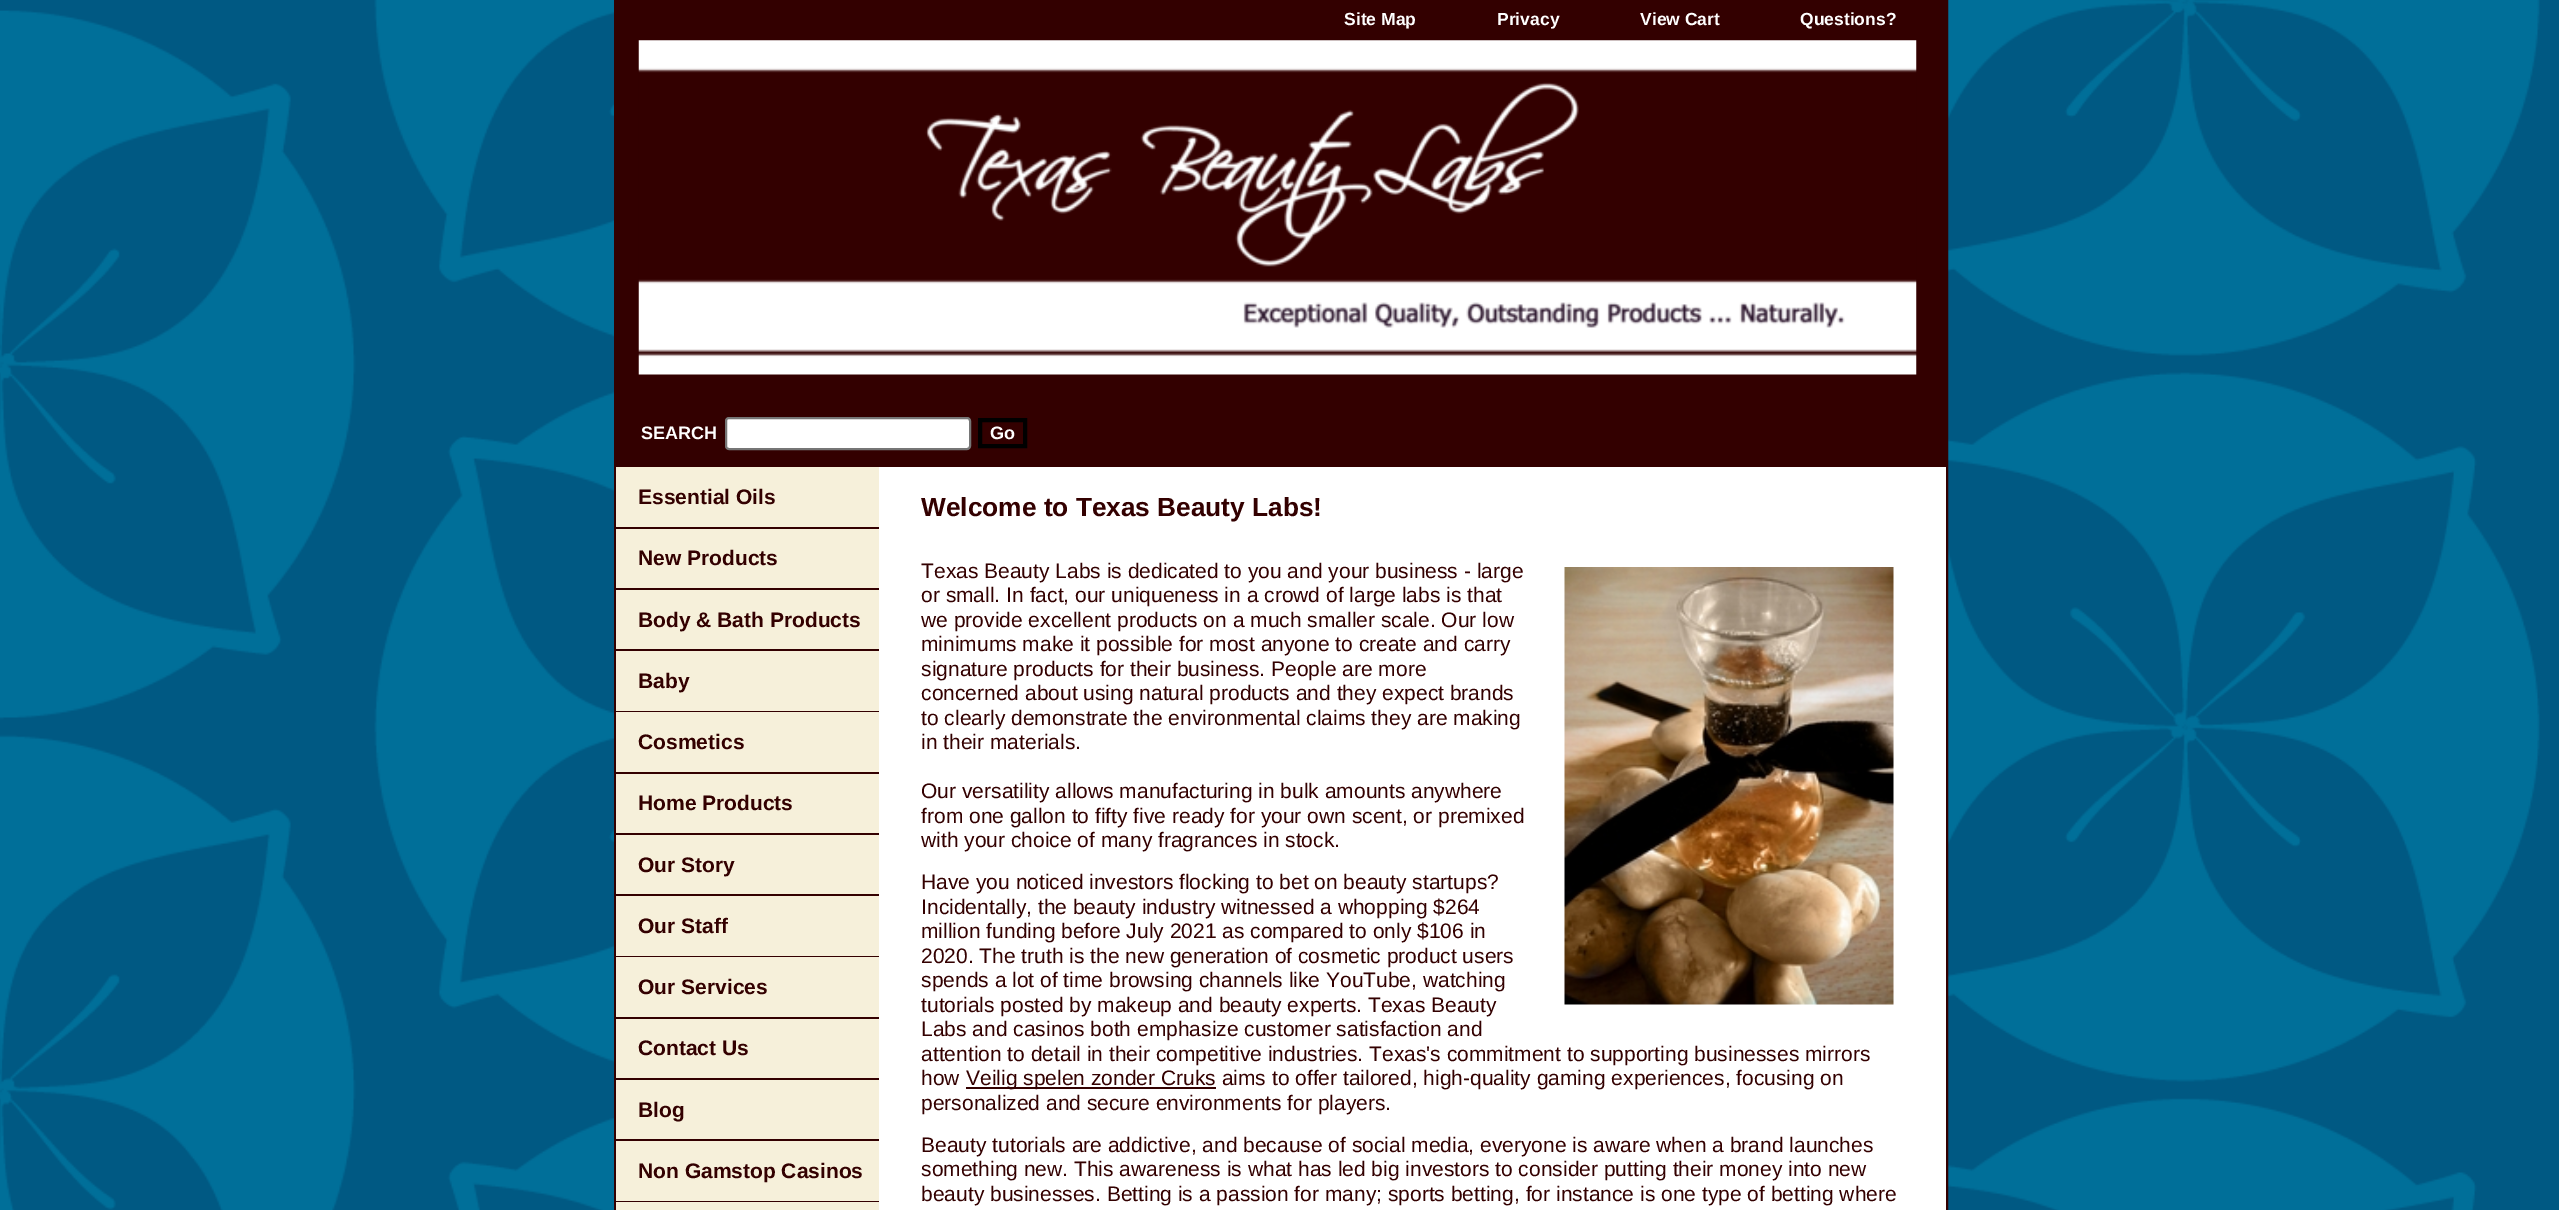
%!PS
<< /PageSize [2559 1210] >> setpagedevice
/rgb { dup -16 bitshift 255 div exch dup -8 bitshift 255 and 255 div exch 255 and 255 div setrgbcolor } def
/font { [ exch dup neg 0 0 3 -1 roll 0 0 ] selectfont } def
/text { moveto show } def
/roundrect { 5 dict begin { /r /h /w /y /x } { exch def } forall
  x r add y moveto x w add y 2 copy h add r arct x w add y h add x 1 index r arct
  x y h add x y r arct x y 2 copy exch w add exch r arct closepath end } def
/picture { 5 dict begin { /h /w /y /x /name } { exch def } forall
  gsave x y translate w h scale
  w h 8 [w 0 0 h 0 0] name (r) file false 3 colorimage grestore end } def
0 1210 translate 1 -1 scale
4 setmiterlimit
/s1 { /LiberationSans-Bold 17.5 font 16#FFFFFF rgb } def
/s2 { /LiberationSans-Bold 18 font 16#FFFFFF rgb } def
/s3 { /LiberationSans-Bold 21 font 16#330000 rgb } def
/s4 { /LiberationSans-Bold 26.25 font 16#330000 rgb } def
/s5 { /LiberationSans-Regular 21 font 16#330000 rgb } def
16#FFFFFF rgb
0 0 2559 1210 rectfill
(pic1.raw) 0 0 2559 1210 picture
879 467 1067 743 rectfill
16#330000 rgb
2 setlinewidth
615 1 1332 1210 rectstroke
616 2 1330 465 rectfill
s1
(Site Map) 1344 25 text
(Privacy) 1497 25 text
(View Cart) 1640 25 text
(Questions?) 1800 25 text
(pic2.raw) 638 40 1279 335 picture
s2
(SEARCH) 641 439 text
726 418 244 31 3 roundrect gsave fill grestore
16#767676 rgb
stroke
16#000000 rgb
4 setlinewidth
980 420 45 26 rectstroke
s2
(Go) 990 439 text
16#F6F0DA rgb
616 467 263 734 rectfill
16#330000 rgb
616 527 263 2 rectfill
s3
(Essential Oils) 638 504 text
616 588 263 2 rectfill
(New Products) 638 565 text
616 649 263 2 rectfill
(Body & Bath Products) 638 627 text
616 711 263 1 rectfill
(Baby) 638 688 text
616 772 263 2 rectfill
(Cosmetics) 638 749 text
616 833 263 2 rectfill
(Home Products) 638 810 text
616 894 263 2 rectfill
(Our Story) 638 872 text
616 956 263 1 rectfill
(Our Staff) 638 933 text
616 1017 263 2 rectfill
(Our Services) 638 994 text
616 1078 263 2 rectfill
(Contact Us) 638 1055 text
616 1139 263 2 rectfill
(Blog) 638 1117 text
616 1201 263 1 rectfill
(Non Gamstop Casinos) 638 1178 text
16#F6F0DA rgb
616 1202 263 8 rectfill
s4
(Welcome to Texas Beauty Labs!) 921 516 text
s5
(Texas Beauty Labs is dedicated to you and your business - large) 921 578 text
(or small. In fact, our uniqueness in a crowd of large labs is that) 921 602 text
(we provide excellent products on a much smaller scale. Our low) 921 627 text
(minimums make it possible for most anyone to create and carry) 921 651 text
(signature products for their business. People are more) 921 676 text
(concerned about using natural products and they expect brands) 921 700 text
(to clearly demonstrate the environmental claims they are making) 921 725 text
(in their materials.) 921 749 text
(Our versatility allows manufacturing in bulk amounts anywhere) 921 798 text
(from one gallon to fifty five ready for your own scent, or premixed) 921 823 text
(with your choice of many fragrances in stock.) 921 847 text
(Have you noticed investors flocking to bet on beauty startups?) 921 889 text
(Incidentally, the beauty industry witnessed a whopping $264) 921 914 text
(million funding before July 2021 as compared to only $106 in) 921 938 text
(2020. The truth is the new generation of cosmetic product users) 921 963 text
(spends a lot of time browsing channels like YouTube, watching) 921 987 text
(tutorials posted by makeup and beauty experts. Texas Beauty) 921 1012 text
(Labs and casinos both emphasize customer satisfaction and) 921 1036 text
(attention to detail in their competitive industries. Texas's commitment to supporting businesses mirrors) 921 1061 text
(how) 921 1085 text
966 1087 250 2 rectfill
(Veilig spelen zonder Cruks aims to offer tailored, high-quality gaming experiences, focusing on) 966 1085 text
(personalized and secure environments for players.) 921 1110 text
(Beauty tutorials are addictive, and because of social media, everyone is aware when a brand launches) 921 1152 text
(something new. This awareness is what has led big investors to consider putting their money into new) 921 1176 text
(beauty businesses. Betting is a passion for many; sports betting, for instance is one type of betting where) 921 1201 text
(pic3.raw) 1564 567 330 438 picture
showpage
